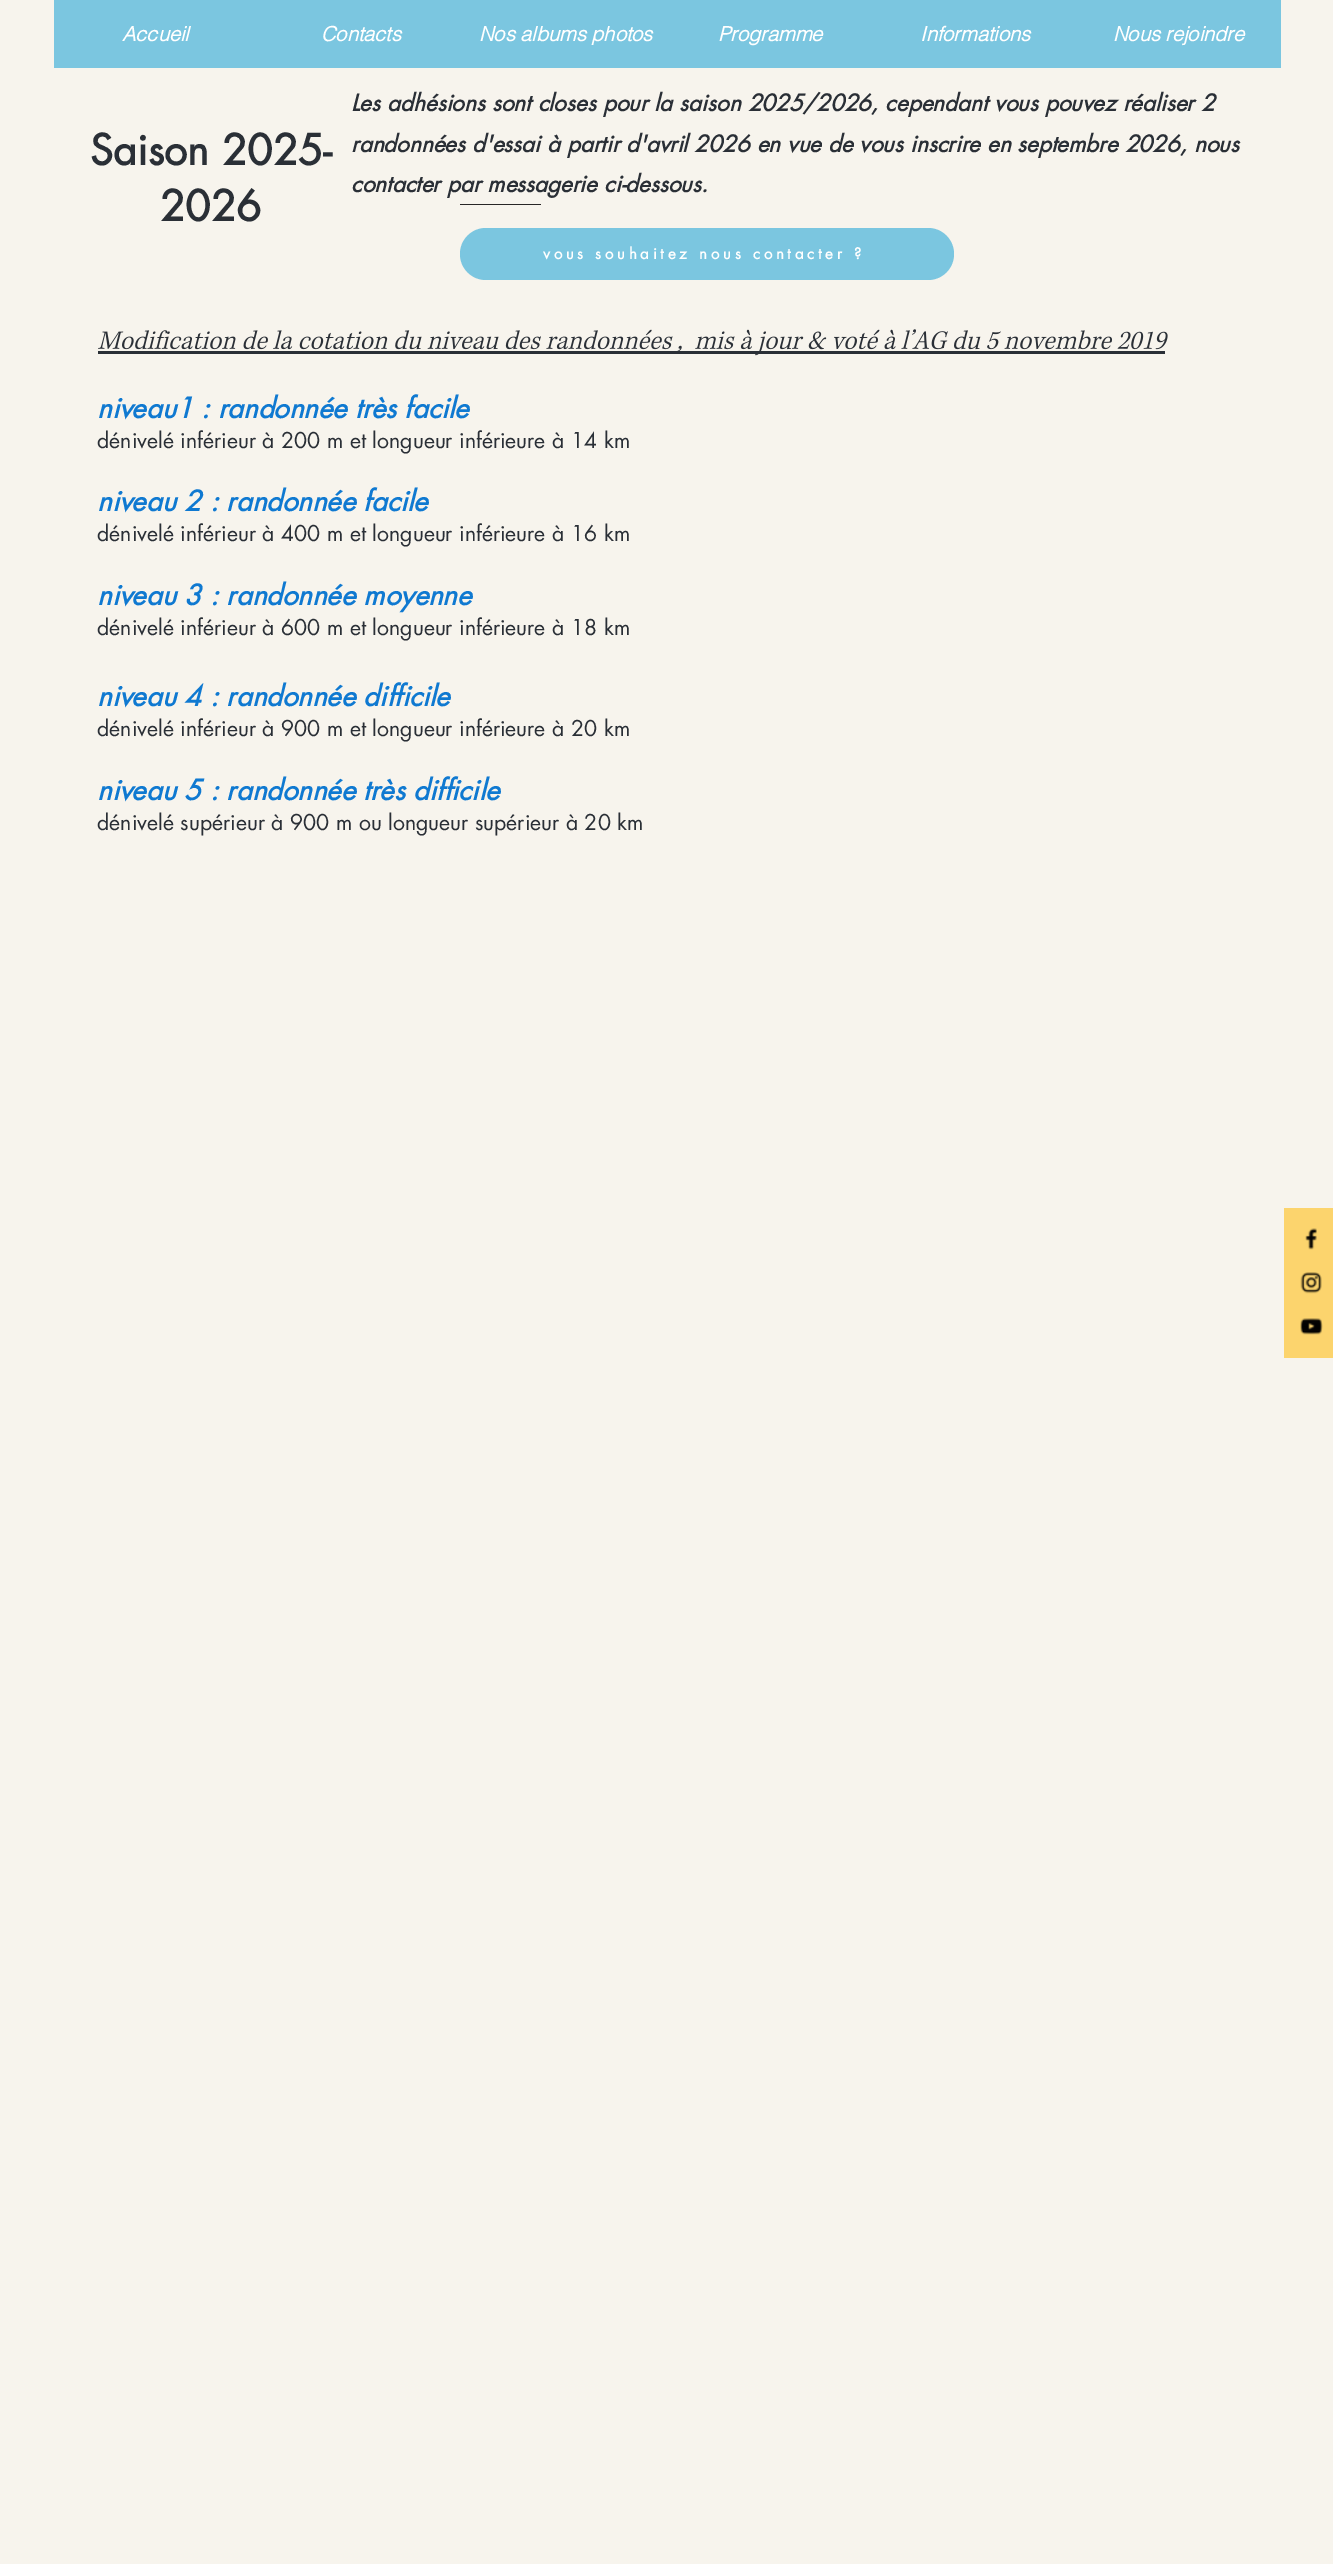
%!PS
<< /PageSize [1333 2564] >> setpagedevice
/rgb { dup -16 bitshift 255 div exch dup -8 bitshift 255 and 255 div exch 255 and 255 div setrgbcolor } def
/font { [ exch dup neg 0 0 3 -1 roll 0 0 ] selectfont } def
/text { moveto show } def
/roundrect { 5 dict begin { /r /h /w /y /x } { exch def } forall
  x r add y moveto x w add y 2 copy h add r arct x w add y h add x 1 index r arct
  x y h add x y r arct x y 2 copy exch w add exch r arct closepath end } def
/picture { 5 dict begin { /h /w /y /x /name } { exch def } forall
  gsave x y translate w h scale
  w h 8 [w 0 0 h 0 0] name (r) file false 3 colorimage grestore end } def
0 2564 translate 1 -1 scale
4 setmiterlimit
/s1 { /helvetica-BoldItalic 20 font 16#FFFFFF rgb } def
/s2 { /futura-Bold 41.25 font 16#2A2F36 rgb } def
/s3 { /futura-BoldItalic 22.5 font 16#2A2F36 rgb } def
/s4 { /futura-BoldItalic 27.5 font 16#0F79D1 rgb } def
/s5 { /futura-Regular 21.25 font 16#2A2F36 rgb } def
16#F7F4ED rgb
0 0 1333 2564 rectfill
16#7BC6E0 rgb
54 0 1227 68 rectfill
s1
(Accueil) 122 41 text
(Contacts) 321 41 text
(Nos albums photos) 479 41 text
(Programme) 718 41 text
(Informations) 920 41 text
(Nous rejoindre) 1113 41 text
s2
(Saison 2025-) 90 165 text
(2026) 160 221 text
s3
(Les adhésions sont closes pour la saison 2025/2026, cependant vous pouvez réaliser 2) 351 111 text
(randonnées d'essai à partir d'avril 2026 en vue de vous inscrire en septembre 2026, nous) 351 152 text
(contacter par messagerie ci-dessous.) 351 192 text
16#282626 rgb
460 204 81 1 rectfill
16#7BC6E0 rgb
460 228 494 52 26 roundrect fill
/futura-Bold 15 font
16#FFFFFF rgb
543 259 moveto 3.75 0 (vous souhaitez nous contacter ?) ashow
16#2A2F36 rgb
98 351 1067 3 rectfill
(pic1.raw) 98 329 1070 27 picture
s4
(niveau1 : randonnée très facile) 97 418 text
s5
(dénivelé inférieur à 200 m et longueur inférieure à 14 km) 97 448 text
s4
(niveau 2 : randonnée facile) 97 511 text
s5
(dénivelé inférieur à 400 m et longueur inférieure à 16 km) 97 541 text
s4
(niveau 3 : randonnée moyenne) 97 605 text
s5
(dénivelé inférieur à 600 m et longueur inférieure à 18 km) 97 635 text
s4
(niveau 4 : randonnée difficile) 97 706 text
s5
(dénivelé inférieur à 900 m et longueur inférieure à 20 km) 97 736 text
s4
(niveau 5 : randonnée très difficile) 97 800 text
s5
(dénivelé supérieur à 900 m ou longueur supérieur à 20 km) 97 830 text
16#FCD46D rgb
1284 1208 49 150 rectfill
(pic2.raw) 1305 1228 12 22 picture
(pic3.raw) 1300 1272 22 22 picture
(pic4.raw) 1300 1318 23 17 picture
showpage
